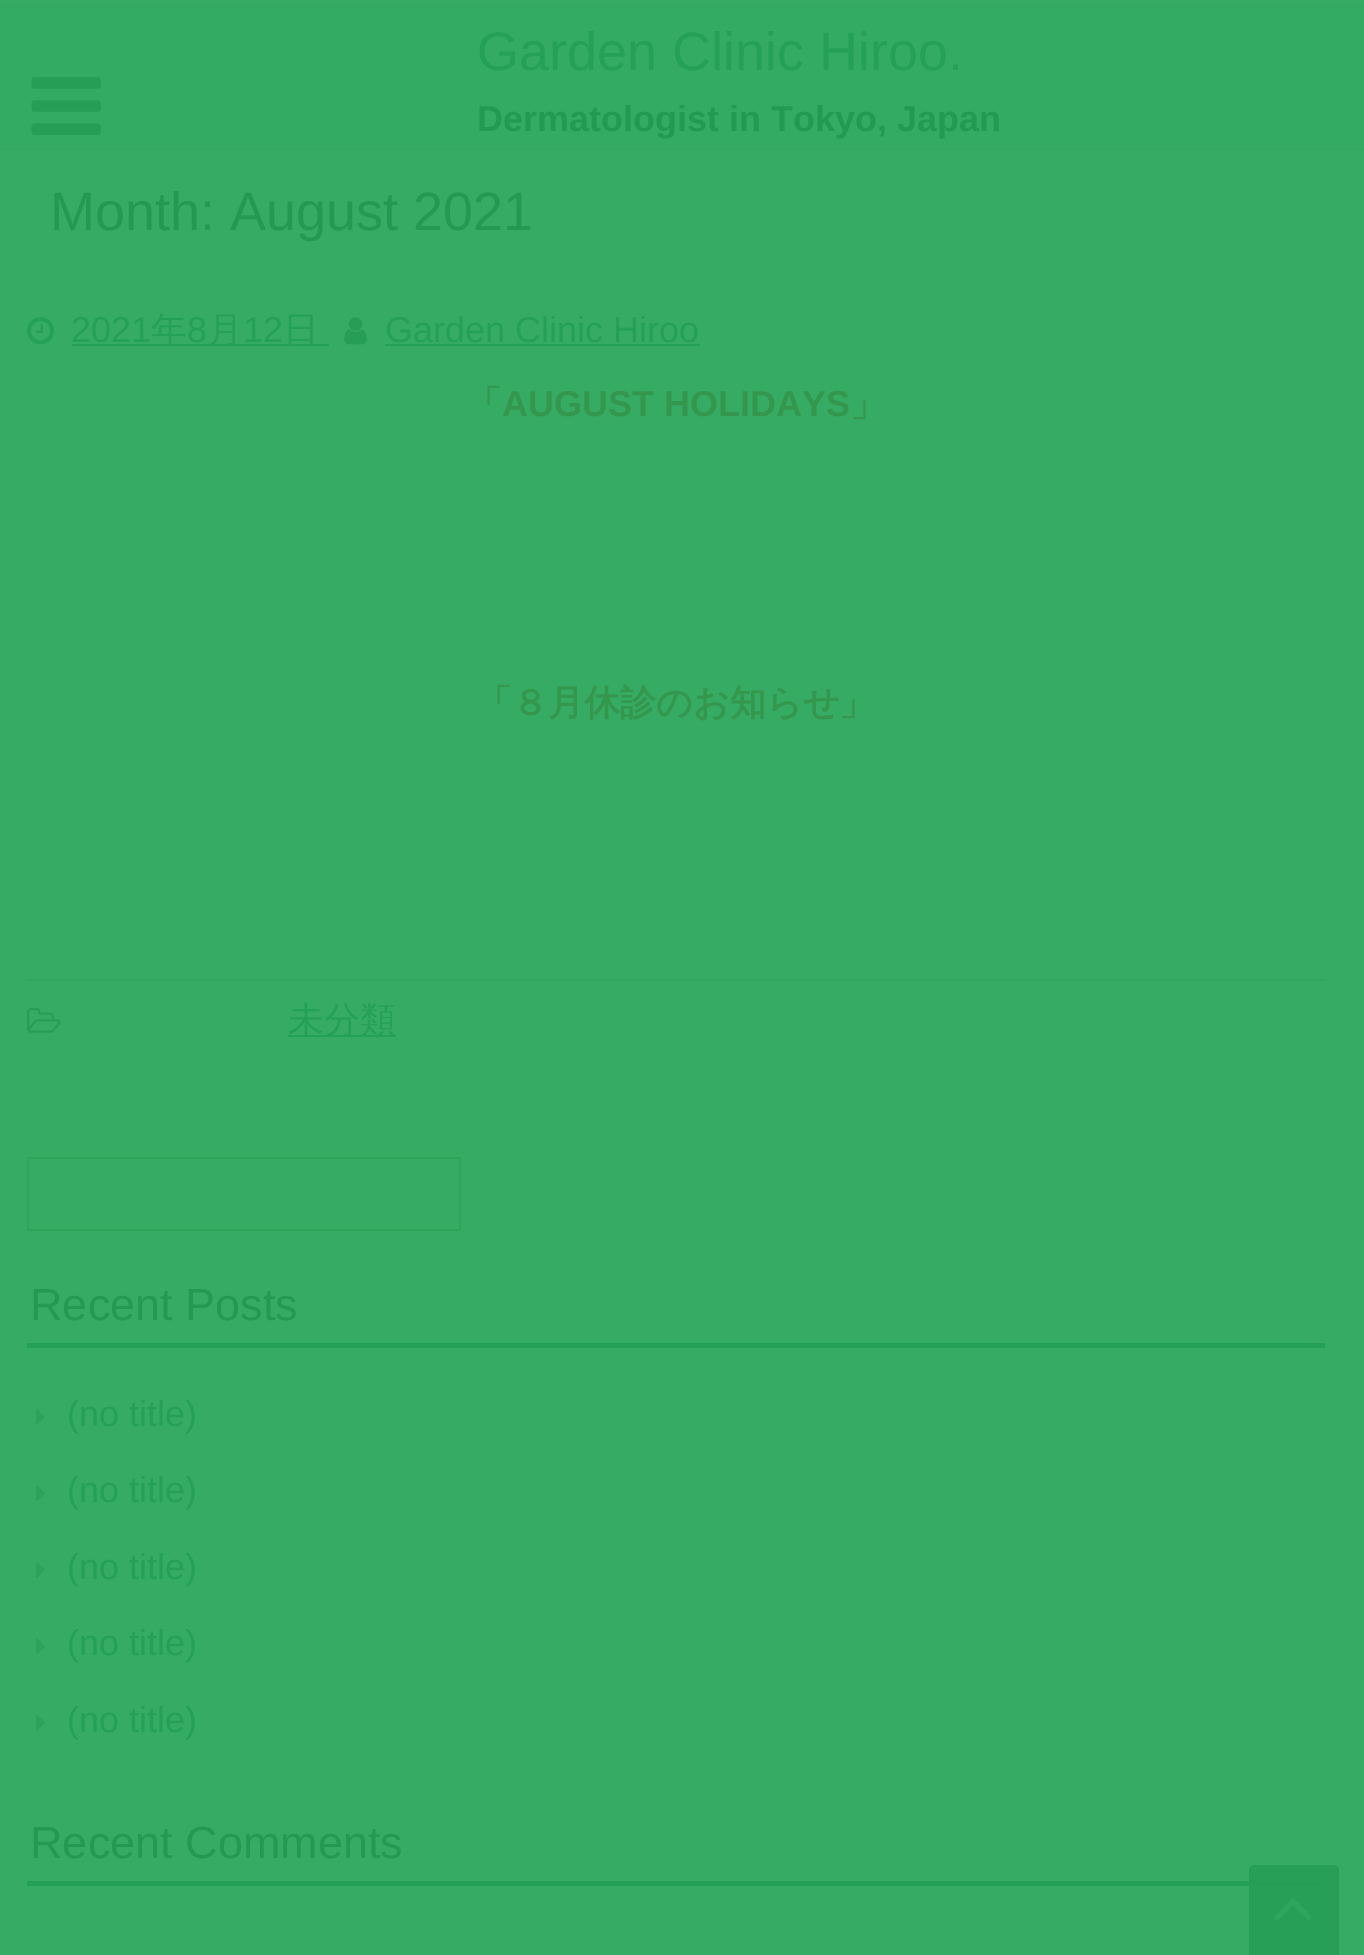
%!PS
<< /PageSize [1364 1955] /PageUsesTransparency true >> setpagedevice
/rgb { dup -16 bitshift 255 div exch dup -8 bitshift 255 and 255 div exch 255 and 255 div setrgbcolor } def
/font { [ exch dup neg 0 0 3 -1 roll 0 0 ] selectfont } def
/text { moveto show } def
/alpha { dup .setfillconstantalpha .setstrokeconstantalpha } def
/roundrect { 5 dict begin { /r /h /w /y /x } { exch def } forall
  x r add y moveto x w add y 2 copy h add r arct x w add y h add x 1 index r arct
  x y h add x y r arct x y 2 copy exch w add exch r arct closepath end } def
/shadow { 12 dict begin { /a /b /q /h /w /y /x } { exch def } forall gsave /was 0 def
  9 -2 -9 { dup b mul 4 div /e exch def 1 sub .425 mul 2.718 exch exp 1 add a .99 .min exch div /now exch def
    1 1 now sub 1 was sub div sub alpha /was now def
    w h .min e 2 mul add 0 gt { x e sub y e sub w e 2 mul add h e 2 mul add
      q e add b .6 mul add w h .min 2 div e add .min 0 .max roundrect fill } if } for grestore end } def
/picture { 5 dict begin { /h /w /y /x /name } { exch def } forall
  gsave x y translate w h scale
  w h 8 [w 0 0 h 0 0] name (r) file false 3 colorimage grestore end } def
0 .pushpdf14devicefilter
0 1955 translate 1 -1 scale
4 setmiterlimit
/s1 { /LiberationSans-Regular 54 font 16#24A057 rgb } def
/s2 { /LiberationSans-Bold 36 font 16#239A51 rgb } def
/s3 { /LiberationSans-Regular 54 font 16#239A51 rgb } def
/s4 { /LiberationSans-Regular 36 font 16#24A057 rgb } def
/s5 { /WenQuanYiZenHei-Medium 36 font 16#24A057 rgb } def
/s6 { /WenQuanYiZenHei-Bold 36 font 16#35974E rgb } def
/s7 { /LiberationSans-Bold 36 font 16#35974E rgb } def
/s8 { /LiberationSans-Regular 45 font 16#239A51 rgb } def
16#35AB63 rgb
0 0 1364 1955 rectfill
16#2AA158 rgb
2 5 1362 144 0 1 1 shadow
16#34AB62 rgb
1 4 1363 145 rectfill
(pic1.raw) 31 77 70 58 picture
s1
(Garden Clinic Hiroo.) 477 70 text
s2
(Dermatologist in Tokyo, Japan) 477 131 text
s3
(Month: August 2021) 50 230 text
(pic2.raw) 27 317 27 28 picture
s4
(2021) 71 342 text
72 344 257 2 rectfill
s5
(年) 151 342 text
s4
(8) 187 342 text
s5
(月) 207 342 text
s4
(12) 243 342 text
s5
(日) 283 342 text
(pic3.raw) 344 317 23 28 picture
s4
(Garden Clinic Hiroo) 385 342 text
385 344 315 2 rectfill
s6
(「) 466 416 text
s7
(AUGUST HOLIDAYS) 502 416 text
s6
(」) 850 416 text
(「８月休診のお知らせ」) 476 715 text
16#31A75F rgb
27 979 1298 2 rectfill
(pic4.raw) 27 1008 34 25 picture
16#24A057 rgb
288 1035 108 2 rectfill
s5
(未分類) 288 1032 text
16#2EA55B rgb
2 setlinewidth
28 1158 432 72 1 roundrect stroke
s8
(Recent Posts) 30 1320 text
16#24A057 rgb
27 1343 1298 5 rectfill
(pic5.raw) 36 1409 9 16 picture
s4
(\(no title\)) 67 1426 text
(pic6.raw) 36 1485 9 16 picture
(\(no title\)) 67 1502 text
(pic5.raw) 36 1562 9 16 picture
(\(no title\)) 67 1579 text
(pic6.raw) 36 1638 9 16 picture
(\(no title\)) 67 1655 text
(pic5.raw) 36 1715 9 16 picture
(\(no title\)) 67 1732 text
s8
(Recent Comments) 30 1858 text
16#24A057 rgb
27 1881 1298 5 rectfill
0.9 alpha
16#279E55 rgb
1254 1865 moveto 1334 1865 lineto 1337 1865 1339 1867 1339 1870 curveto 1339 1955 lineto 1249 1955 lineto 1249 1870 lineto 1249 1867 1251 1865 1254 1865 curveto closepath fill
1 alpha
(pic7.raw) 1274 1898 38 23 picture
.poppdf14devicefilter showpage
